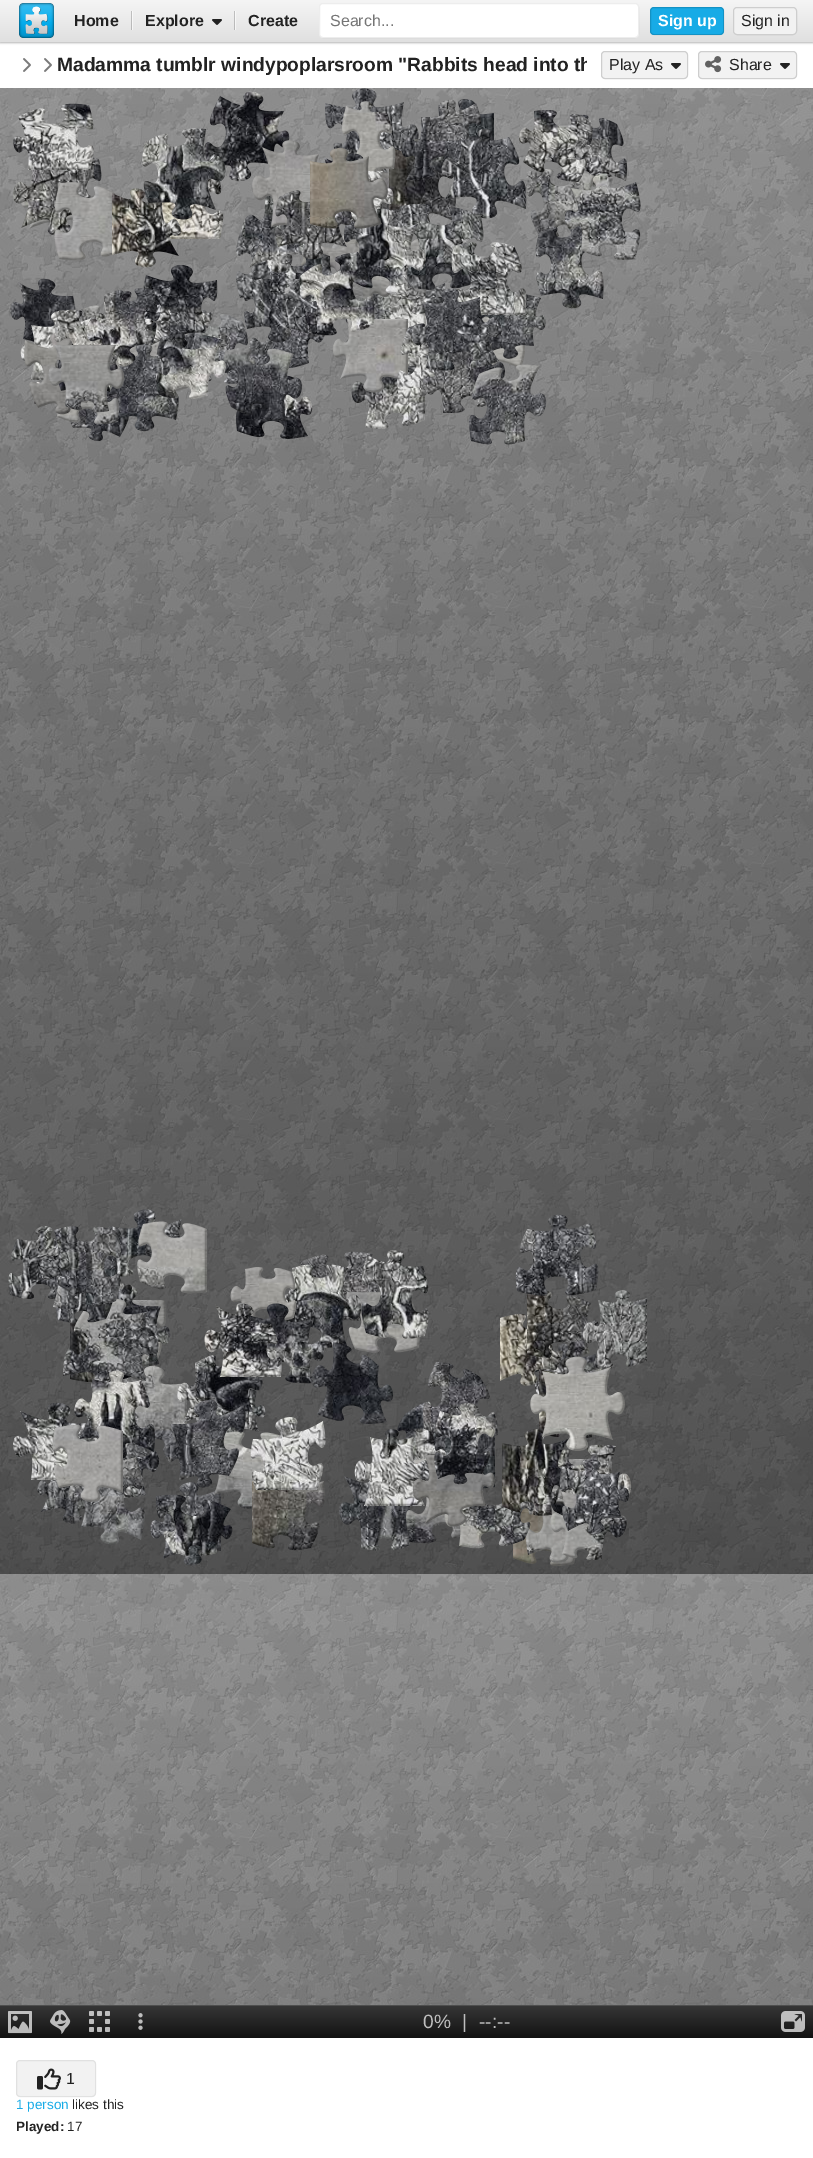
%!PS
<< /PageSize [813 2158] /PageUsesTransparency true >> setpagedevice
/rgb { dup -16 bitshift 255 div exch dup -8 bitshift 255 and 255 div exch 255 and 255 div setrgbcolor } def
/font { [ exch dup neg 0 0 3 -1 roll 0 0 ] selectfont } def
/text { moveto show } def
/alpha { dup .setfillconstantalpha .setstrokeconstantalpha } def
/roundrect { 5 dict begin { /r /h /w /y /x } { exch def } forall
  x r add y moveto x w add y 2 copy h add r arct x w add y h add x 1 index r arct
  x y h add x y r arct x y 2 copy exch w add exch r arct closepath end } def
/shadow { 12 dict begin { /a /b /q /h /w /y /x } { exch def } forall gsave /was 0 def
  9 -2 -9 { dup b mul 4 div /e exch def 1 sub .425 mul 2.718 exch exp 1 add a .99 .min exch div /now exch def
    1 1 now sub 1 was sub div sub alpha /was now def
    w h .min e 2 mul add 0 gt { x e sub y e sub w e 2 mul add h e 2 mul add
      q e add b .6 mul add w h .min 2 div e add .min 0 .max roundrect fill } if } for grestore end } def
/picture { 5 dict begin { /h /w /y /x /name } { exch def } forall
  gsave x y translate w h scale
  w h 8 [w 0 0 h 0 0] name (r) file false 3 colorimage grestore end } def
0 .pushpdf14devicefilter
0 2158 translate 1 -1 scale
4 setmiterlimit
/s1 { /LiberationSans-Bold 16 font 16#222222 rgb } def
/s2 { /LiberationSans-Regular 16 font 16#757575 rgb } def
/s3 { /LiberationSans-Bold 16 font 16#FFFFFF rgb } def
/s4 { /LiberationSans-Regular 16 font 16#222222 rgb } def
/s5 { /LiberationSans-Bold 19.2 font 16#222222 rgb } def
/s6 { /LiberationSans-Regular 19.2 font 16#BEBEBE rgb } def
/s7 { /LiberationSans-Regular 13.5 font 16#17ABE6 rgb } def
/s8 { /LiberationSans-Regular 13.5 font 16#222222 rgb } def
/s9 { /LiberationSans-Bold 13.5 font 16#222222 rgb } def
16#FFFFFF rgb
0 0 813 2158 rectfill
16#000000 rgb
0 1 813 42 0 1 0.3 shadow
gsave 0 0 moveto 813 0 lineto 813 42 lineto 0 42 lineto closepath clip newpath
<< /ShadingType 2 /ColorSpace /DeviceRGB /Coords [407 0 407 42] /Extend [true true] /Function << /FunctionType 2 /Domain [0 1] /C0 [0.961 0.961 0.961] /C1 [0.878 0.878 0.878] /N 1 >> >> shfill grestore
gsave 234 11 moveto 235 11 lineto 235 30 lineto 234 30 lineto closepath clip newpath
<< /ShadingType 2 /ColorSpace /DeviceRGB /Coords [407 0 407 42] /Extend [true true] /Function << /FunctionType 2 /Domain [0 1] /C0 [0.769 0.769 0.769] /C1 [0.702 0.702 0.702] /N 1 >> >> shfill grestore
gsave 235 11 moveto 236 11 lineto 236 30 lineto 235 30 lineto closepath clip newpath
<< /ShadingType 2 /ColorSpace /DeviceRGB /Coords [407 0 407 42] /Extend [true true] /Function << /FunctionType 2 /Domain [0 1] /C0 [0.984 0.984 0.984] /C1 [0.953 0.953 0.953] /N 1 >> >> shfill grestore
gsave 131 11 moveto 132 11 lineto 132 30 lineto 131 30 lineto closepath clip newpath
<< /ShadingType 2 /ColorSpace /DeviceRGB /Coords [407 0 407 42] /Extend [true true] /Function << /FunctionType 2 /Domain [0 1] /C0 [0.769 0.769 0.769] /C1 [0.702 0.702 0.702] /N 1 >> >> shfill grestore
gsave 132 11 moveto 133 11 lineto 133 30 lineto 132 30 lineto closepath clip newpath
<< /ShadingType 2 /ColorSpace /DeviceRGB /Coords [407 0 407 42] /Extend [true true] /Function << /FunctionType 2 /Domain [0 1] /C0 [0.984 0.984 0.984] /C1 [0.953 0.953 0.953] /N 1 >> >> shfill grestore
(pic1.raw) 19 3 35 35 picture
s1
(Home) 74 26 text
(Explore) 145 26 text
(pic2.raw) 212 19 10 6 picture
(Create) 248 26 text
16#FFFFFF rgb
319 3 320 35 4 roundrect fill
0.07 alpha
16#000000 rgb
319.5 3.5 319 34 3.5 roundrect stroke
1 alpha
s2
(Search...) 330 26 text
16#17ABE6 rgb
650 7 74 28 4 roundrect fill
0.15 alpha
16#000000 rgb
650.5 7.5 73 27 3.5 roundrect stroke
1 alpha
s3
(Sign up) 658 26 text
16#F2F2F2 rgb
733 7 64 28 4 roundrect fill
0.15 alpha
16#000000 rgb
733.5 7.5 63 27 3.5 roundrect stroke
1 alpha
s4
(Sign in) 741 26 text
(pic3.raw) 23 58 8 14 picture
(pic3.raw) 44 58 8 14 picture
gsave
16 51 571 28 rectclip
s5
(Madamma tumblr windypoplarsroom "Rabbits head into th) 57 71 text
grestore
16#F2F2F2 rgb
601 51 87 28 4 roundrect fill
0.15 alpha
16#000000 rgb
601.5 51.5 86 27 3.5 roundrect stroke
1 alpha
s4
(Play As) 609 70 text
(pic4.raw) 671 63 10 6 picture
16#F2F2F2 rgb
698 51 99 28 4 roundrect fill
0.15 alpha
16#000000 rgb
698.5 51.5 98 27 3.5 roundrect stroke
1 alpha
(pic5.raw) 705 56 17 17 picture
s4
(Share) 729 70 text
(pic4.raw) 780 63 10 6 picture
(pic6.raw) 0 88 813 1917 picture
(pic7.raw) 203 91 87 91 picture
(pic8.raw) 325 88 94 86 picture
(pic34.raw) 331 225 89 69 picture
(pic28.raw) 375 168 25 59 picture
(pic18.raw) 389 139 67 83 picture
(pic13.raw) 430 99 64 75 picture
(pic9.raw) 401 99 81 81 picture
(pic22.raw) 21 170 52 66 picture
(pic20.raw) 13 157 89 79 picture
(pic10.raw) 13 103 81 67 picture
(pic25.raw) 160 178 64 61 picture
(pic11.raw) 142 128 84 92 picture
(pic12.raw) 342 101 54 71 picture
(pic15.raw) 570 114 58 74 picture
(pic44.raw) 372 280 74 39 picture
(pic29.raw) 397 203 87 87 picture
(pic30.raw) 526 169 69 68 picture
(pic19.raw) 441 129 86 90 picture
(pic14.raw) 519 110 74 72 picture
(pic33.raw) 236 229 57 69 picture
(pic36.raw) 300 242 31 24 picture
(pic37.raw) 320 235 71 89 picture
(pic42.raw) 257 253 83 49 picture
(pic26.raw) 242 195 63 78 picture
(pic16.raw) 252 140 67 87 picture
(pic21.raw) 324 153 70 69 picture
(pic32.raw) 344 208 82 87 picture
(pic27.raw) 275 190 77 70 picture
(pic17.raw) 310 148 78 81 picture
(pic23.raw) 54 182 64 79 picture
(pic48.raw) 104 291 57 53 picture
(pic65.raw) 115 359 5 10 picture
(pic51.raw) 78 305 70 64 picture
(pic59.raw) 111 333 78 59 picture
(pic53.raw) 184 309 66 75 picture
(pic66.raw) 69 363 60 78 picture
(pic62.raw) 106 343 73 89 picture
(pic41.raw) 143 265 75 83 picture
(pic24.raw) 112 188 69 80 picture
(pic57.raw) 482 316 43 51 picture
(pic50.raw) 481 294 65 65 picture
(pic35.raw) 535 225 69 84 picture
(pic31.raw) 565 173 76 87 picture
(pic38.raw) 451 242 76 73 picture
(pic46.raw) 249 286 76 82 picture
(pic43.raw) 244 278 74 65 picture
(pic49.raw) 376 299 51 67 picture
(pic71.raw) 351 366 74 63 picture
(pic55.raw) 332 319 76 74 picture
(pic39.raw) 299 252 76 84 picture
(pic40.raw) 10 278 66 64 picture
(pic54.raw) 20 310 71 70 picture
(pic68.raw) 33 381 25 33 picture
(pic69.raw) 57 365 62 60 picture
(pic58.raw) 24 333 65 82 picture
(pic52.raw) 54 309 64 92 picture
(pic70.raw) 236 375 77 64 picture
(pic63.raw) 223 347 79 74 picture
(pic60.raw) 156 334 70 65 picture
(pic45.raw) 86 288 71 79 picture
(pic56.raw) 397 323 38 76 picture
(pic64.raw) 423 343 82 70 picture
(pic67.raw) 469 364 78 81 picture
(pic47.raw) 411 288 91 83 picture
(pic61.raw) 48 345 77 68 picture
(pic72.raw) 107 1209 77 68 picture
(pic93.raw) 534 1343 74 52 picture
(pic92.raw) 500 1314 63 72 picture
(pic84.raw) 527 1291 73 67 picture
(pic85.raw) 583 1290 64 79 picture
(pic73.raw) 515 1214 84 82 picture
(pic74.raw) 8 1226 51 73 picture
(pic88.raw) 132 1300 34 66 picture
(pic107.raw) 88 1437 71 61 picture
(pic96.raw) 122 1366 65 91 picture
(pic87.raw) 70 1319 63 63 picture
(pic82.raw) 84 1283 87 84 picture
(pic86.raw) 63 1298 96 92 picture
(pic79.raw) 56 1255 62 68 picture
(pic75.raw) 39 1226 82 84 picture
(pic76.raw) 137 1221 70 73 picture
(pic77.raw) 300 1251 79 79 picture
(pic83.raw) 346 1292 74 61 picture
(pic81.raw) 284 1264 78 84 picture
(pic78.raw) 361 1250 68 89 picture
(pic80.raw) 230 1267 67 54 picture
(pic91.raw) 312 1342 81 82 picture
(pic100.raw) 190 1385 76 49 picture
(pic94.raw) 177 1355 86 69 picture
(pic90.raw) 248 1303 76 81 picture
(pic89.raw) 204 1303 78 74 picture
(pic122.raw) 552 1459 34 30 picture
(pic126.raw) 513 1508 65 58 picture
(pic124.raw) 525 1489 44 74 picture
(pic112.raw) 551 1444 81 72 picture
(pic104.raw) 397 1401 49 62 picture
(pic120.raw) 339 1476 71 75 picture
(pic115.raw) 406 1458 77 85 picture
(pic121.raw) 444 1488 91 61 picture
(pic111.raw) 502 1429 72 87 picture
(pic98.raw) 539 1357 64 82 picture
(pic95.raw) 530 1356 95 95 picture
(pic97.raw) 423 1362 75 74 picture
(pic101.raw) 13 1403 86 77 picture
(pic117.raw) 37 1480 49 44 picture
(pic113.raw) 69 1457 76 88 picture
(pic99.raw) 74 1370 81 89 picture
(pic118.raw) 150 1482 71 84 picture
(pic123.raw) 156 1494 77 62 picture
(pic108.raw) 214 1431 67 78 picture
(pic102.raw) 164 1400 82 88 picture
(pic119.raw) 252 1481 73 70 picture
(pic103.raw) 250 1417 76 73 picture
(pic110.raw) 434 1432 61 57 picture
(pic109.raw) 354 1429 76 77 picture
(pic114.raw) 412 1455 83 72 picture
(pic105.raw) 434 1402 62 83 picture
(pic106.raw) 52 1424 71 78 picture
(pic125.raw) 550 1491 77 69 picture
(pic116.raw) 559 1458 70 77 picture
gsave 0 2006 moveto 813 2006 lineto 813 2038 lineto 0 2038 lineto closepath clip newpath
<< /ShadingType 2 /ColorSpace /DeviceRGB /Coords [407 2006 407 2038] /Extend [true true] /Function << /FunctionType 2 /Domain [0 1] /C0 [0.212 0.212 0.212] /C1 [0.071 0.071 0.071] /N 1 >> >> shfill grestore
16#4F4F4F rgb
0 2005 813 1 rectfill
(pic127.raw) 8 2011 24 23 picture
(pic128.raw) 50 2010 21 24 picture
(pic129.raw) 89 2011 21 21 picture
(pic130.raw) 138 2013 5 17 picture
s6
(0%) 423 2028 text
(|) 462 2028 text
(--:--) 479 2028 text
(pic131.raw) 781 2011 24 21 picture
16#F2F2F2 rgb
16 2060 80 37 4 roundrect fill
0.07 alpha
16#000000 rgb
16.5 2060.5 79 36 3.5 roundrect stroke
1 alpha
(pic132.raw) 37 2068 24 22 picture
s4
(1) 66 2084 text
s7
(1 person) 16 2109 text
s8
(likes this) 72 2109 text
s9
(Played:) 16 2131 text
s8
(17) 67 2131 text
.poppdf14devicefilter showpage
